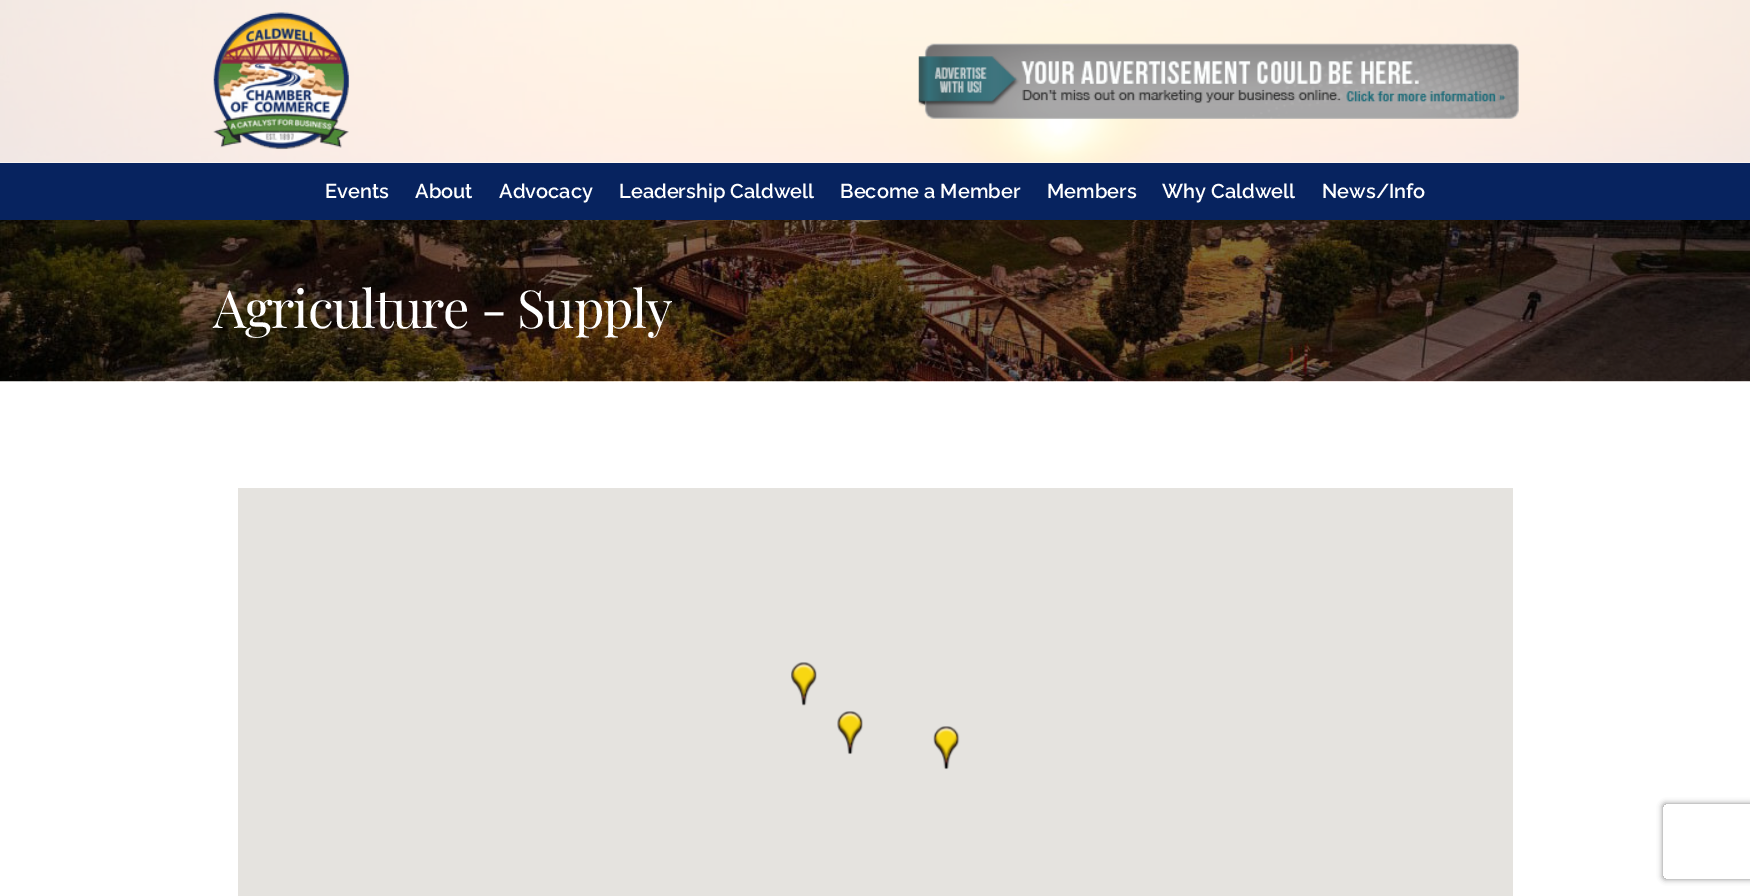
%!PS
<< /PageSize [1750 896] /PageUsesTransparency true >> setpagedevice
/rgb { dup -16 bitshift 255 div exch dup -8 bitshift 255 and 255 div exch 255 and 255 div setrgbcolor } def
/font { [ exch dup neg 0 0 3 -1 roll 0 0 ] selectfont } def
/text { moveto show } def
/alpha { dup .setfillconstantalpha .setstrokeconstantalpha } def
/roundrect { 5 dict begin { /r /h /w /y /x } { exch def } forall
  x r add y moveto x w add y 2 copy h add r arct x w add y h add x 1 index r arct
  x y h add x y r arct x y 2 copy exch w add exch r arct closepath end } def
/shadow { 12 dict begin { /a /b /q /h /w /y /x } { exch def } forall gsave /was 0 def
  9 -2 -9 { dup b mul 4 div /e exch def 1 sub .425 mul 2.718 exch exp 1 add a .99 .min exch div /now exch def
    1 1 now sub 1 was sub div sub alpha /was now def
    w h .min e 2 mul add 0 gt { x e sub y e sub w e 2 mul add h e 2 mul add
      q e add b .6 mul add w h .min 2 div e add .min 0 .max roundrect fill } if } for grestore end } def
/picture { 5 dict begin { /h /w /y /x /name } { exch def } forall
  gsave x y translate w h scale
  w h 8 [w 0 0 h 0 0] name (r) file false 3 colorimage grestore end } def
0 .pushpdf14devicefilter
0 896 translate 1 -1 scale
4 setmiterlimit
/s1 { /Raleway-Thin 20 font 16#FFFFFF rgb } def
16#FFFFFF rgb
0 0 1750 896 rectfill
(pic1.raw) 0 0 1750 163 picture
(pic2.raw) 213 12 137 138 picture
(pic3.raw) 918 43 601 76 picture
16#07235F rgb
0 163 1750 57 rectfill
s1
(Events) 325 198 text
(About) 415 198 text
(Advocacy) 499 198 text
(Leadership Caldwell) 619 198 text
(Become a Member) 840 198 text
(Members) 1047 198 text
(Why Caldwell) 1162 198 text
(News/Info) 1322 198 text
(pic4.raw) 0 220 1750 162 picture
/PlayfairDisplay-Regular 52.5 font
213 328 moveto -1.25 0 (Agriculture - Supply) ashow
16#E5E3DF rgb
238 488 1275 408 rectfill
(pic5.raw) 791 662 26 44 picture
(pic6.raw) 837 711 26 44 picture
(pic7.raw) 933 726 27 44 picture
gsave
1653 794 moveto 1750 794 lineto 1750 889 lineto 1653 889 lineto closepath 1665.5 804 moveto 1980.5 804 lineto 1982 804 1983 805 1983 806.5 curveto 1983 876.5 lineto 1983 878 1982 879 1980.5 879 curveto 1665.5 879 lineto 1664 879 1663 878 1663 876.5 curveto 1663 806.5 lineto 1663 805 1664 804 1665.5 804 curveto closepath eoclip newpath
16#808080 rgb
1663 804 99 75 2.5 3 1 shadow
grestore
.poppdf14devicefilter showpage
